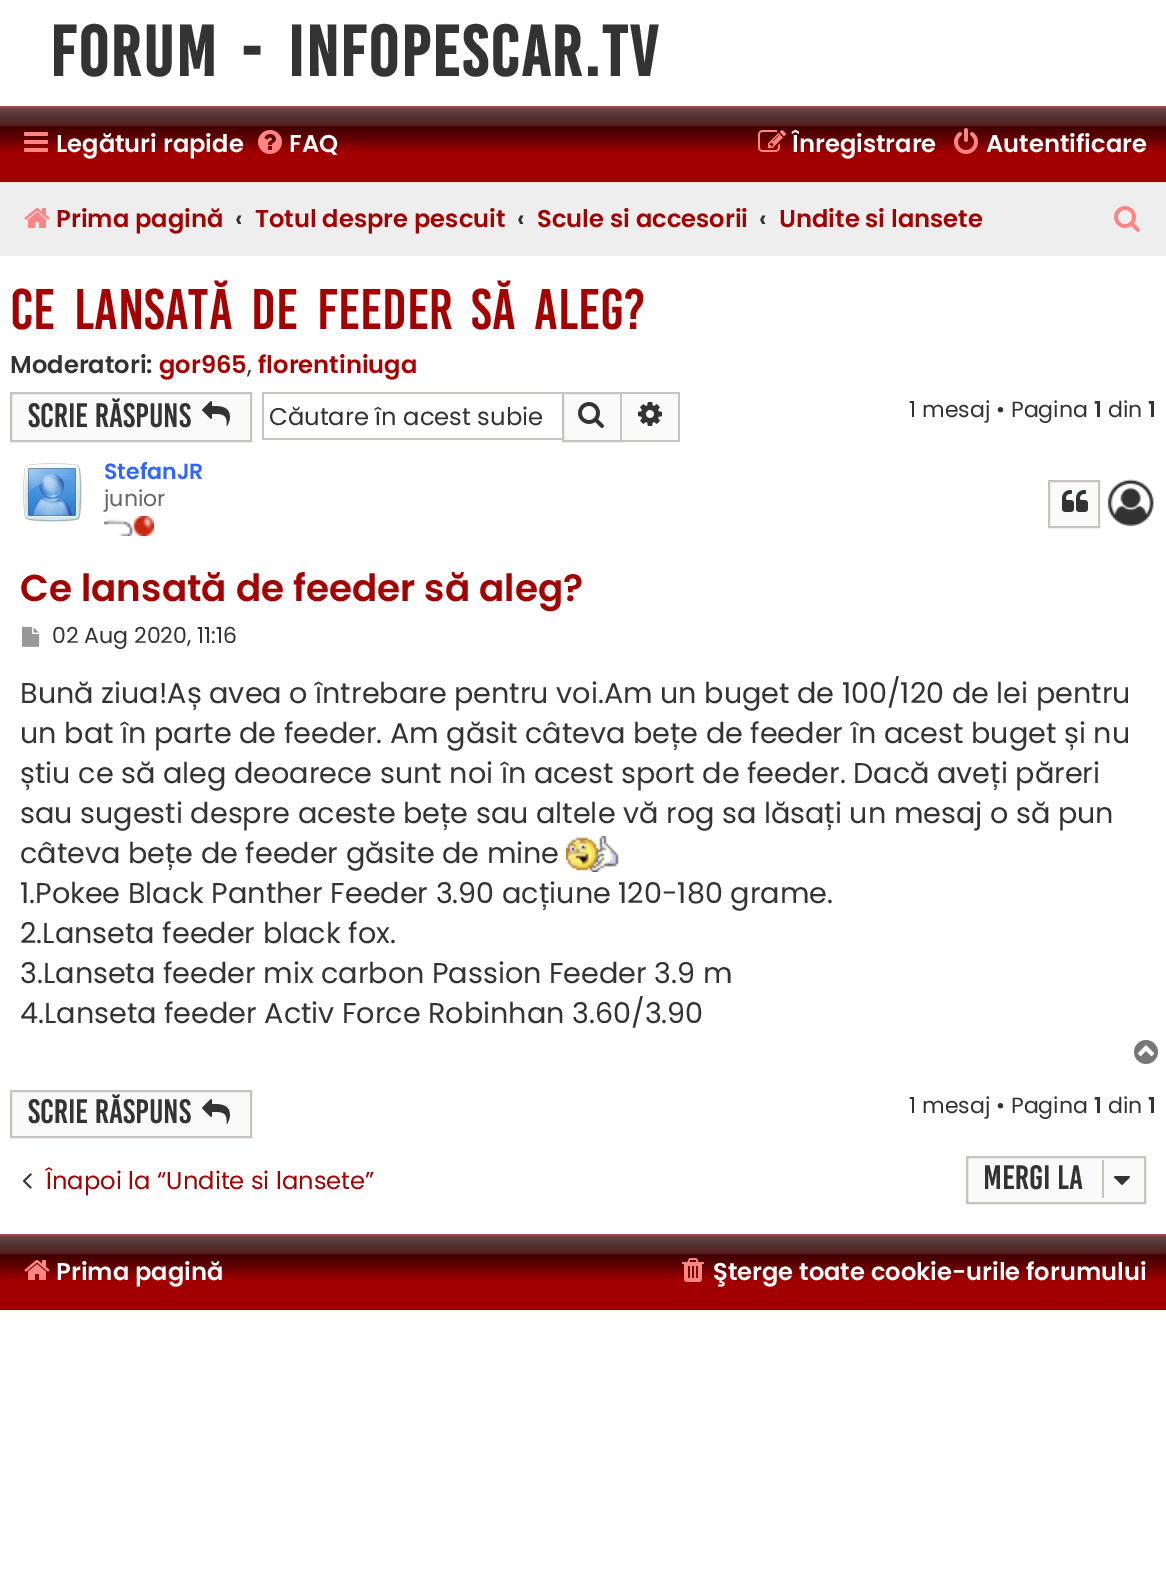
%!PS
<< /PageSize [1166 1596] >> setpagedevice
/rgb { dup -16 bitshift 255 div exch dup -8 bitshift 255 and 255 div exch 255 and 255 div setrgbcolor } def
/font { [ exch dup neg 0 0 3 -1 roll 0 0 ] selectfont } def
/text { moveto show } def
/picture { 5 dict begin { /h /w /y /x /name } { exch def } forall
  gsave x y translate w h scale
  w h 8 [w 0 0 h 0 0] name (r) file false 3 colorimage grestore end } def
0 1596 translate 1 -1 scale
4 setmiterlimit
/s1 { /Poppins-SemiBold 24.25 font 16#FFFFFF rgb } def
/s2 { /Poppins-SemiBold 24.25 font 16#A40101 rgb } def
/s3 { /Poppins-SemiBold 24.25 font 16#333333 rgb } def
/s4 { /Poppins-SemiBold 24.25 font 16#AA0000 rgb } def
/s5 { /Poppins-Regular 24.25 font 16#333333 rgb } def
/s6 { /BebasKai-Regular 26 font 16#333333 rgb } def
/s7 { /Poppins-Regular 22 font 16#333333 rgb } def
/s8 { /Poppins-SemiBold 22 font 16#333333 rgb } def
/s9 { /Poppins-SemiBold 22 font 16#3366FF rgb } def
/s10 { /Poppins-Regular 22 font 16#666666 rgb } def
/s11 { /Poppins-SemiBold 37.4 font 16#A40101 rgb } def
/s12 { /Poppins-Regular 28.6 font 16#333333 rgb } def
/s13 { /Poppins-Regular 24.25 font 16#A40101 rgb } def
16#FFFFFF rgb
0 0 1166 1596 rectfill
/BebasKai-Bold 55 font
16#333333 rgb
50 76 moveto 8 0 32 2 0 (Forum - InfoPescar.Tv) awidthshow
16#A20000 rgb
0 152 1166 30 rectfill
(pic1.raw) 0 106 1166 46 picture
(pic2.raw) 24 132 24 20 picture
s1
(Legături rapide) 56 152 text
(pic3.raw) 258 130 24 24 picture
(FAQ) 289 152 text
(pic4.raw) 758 130 28 22 picture
(Înregistrare) 792 152 text
(pic5.raw) 954 128 24 26 picture
(Autentificare) 986 152 text
16#EEEEEE rgb
0 182 1166 74 rectfill
(pic6.raw) 24 208 26 20 picture
s2
(Prima pagină) 56 227 text
s3
(‹) 235 227 text
s2
(Totul despre pescuit) 255 227 text
s3
(‹) 517 227 text
s2
(Scule si accesorii) 537 227 text
s3
(‹) 759 227 text
s2
(Undite si lansete) 779 227 text
(pic7.raw) 1114 206 26 26 picture
/BebasKai-Regular 44 font
10 329 moveto 8 0 32 (Ce lansată de feeder să aleg?) widthshow
s3
(Moderatori:) 10 373 text
s4
(gor965) 159 373 text
s5
(,) 247 373 text
s4
(florentiniuga) 258 373 text
16#FAFAFA rgb
11 393 moveto 251 393 lineto 251 441 lineto 11 441 lineto closepath gsave fill grestore
16#C7C3BF rgb
2 setlinewidth
stroke
s6
(Scrie răspuns) 28 427 text
(pic8.raw) 202 401 28 25 picture
16#C7C3BF rgb
262 392 300 2 rectfill
262 438 300 2 rectfill
262 392 2 48 rectfill
s5
(Căutare în acest subie) 269 425 text
16#FAFAFA rgb
563 393 moveto 621 393 lineto 621 441 lineto 563 441 lineto closepath gsave fill grestore
16#C7C3BF rgb
stroke
(pic9.raw) 578 402 26 26 picture
16#FAFAFA rgb
622 394 56 46 rectfill
16#C7C3BF rgb
622 392 58 2 rectfill
678 392 2 50 rectfill
622 440 58 2 rectfill
(pic10.raw) 638 402 24 24 picture
s7
(1 mesaj • Pagina) 909 417 text
s8
(1) 1094 417 text
s7
(din) 1108 417 text
s8
(1) 1148 417 text
(pic11.raw) 1107 479 47 48 picture
(pic12.raw) 23 463 59 59 picture
s9
(StefanJR) 104 479 text
s10
(junior) 104 506 text
(pic13.raw) 104 516 50 20 picture
16#FAFAFA rgb
1049 481 moveto 1099 481 lineto 1099 527 lineto 1049 527 lineto closepath gsave fill grestore
16#C7C3BF rgb
stroke
(pic14.raw) 1062 490 26 22 picture
s11
(Ce lansată de feeder să aleg?) 20 601 text
(pic15.raw) 22 626 18 21 picture
s7
(02 Aug 2020, 11:16) 52 643 text
s12
(Bună ziua!Aș avea o întrebare pentru voi.Am un buget de 100/120 de lei pentru) 20 703 text
(un bat în parte de feeder. Am găsit câteva bețe de feeder în acest buget și nu) 20 743 text
(știu ce să aleg deoarece sunt noi în acest sport de feeder. Dacă aveți păreri) 20 783 text
(sau sugesti despre aceste bețe sau altele vă rog sa lăsați un mesaj o să pun) 20 823 text
(câteva bețe de feeder găsite de mine) 20 863 text
(pic16.raw) 566 836 53 36 picture
(1.Pokee Black Panther Feeder 3.90 acțiune 120-180 grame.) 20 903 text
(2.Lanseta feeder black fox.) 20 943 text
(3.Lanseta feeder mix carbon Passion Feeder 3.9 m) 20 983 text
(4.Lanseta feeder Activ Force Robinhan 3.60/3.90) 20 1023 text
(pic17.raw) 1134 1040 24 24 picture
16#FAFAFA rgb
11 1091 moveto 251 1091 lineto 251 1137 lineto 11 1137 lineto closepath gsave fill grestore
16#C7C3BF rgb
stroke
s6
(Scrie răspuns) 28 1123 text
(pic8.raw) 202 1099 28 25 picture
s7
(1 mesaj • Pagina) 909 1113 text
s8
(1) 1094 1113 text
s7
(din) 1108 1113 text
s8
(1) 1148 1113 text
(pic18.raw) 22 1173 10 16 picture
s13
(Înapoi la “Undite si lansete”) 46 1189 text
16#FAFAFA rgb
967 1157 moveto 1145 1157 lineto 1145 1203 lineto 967 1203 lineto closepath gsave fill grestore
16#C7C3BF rgb
stroke
s6
(Mergi la) 983 1189 text
16#C7C3BF rgb
1102 1160 2 38 rectfill
(pic19.raw) 1114 1176 16 9 picture
16#A20000 rgb
0 1280 1166 30 rectfill
(pic1.raw) 0 1234 1166 46 picture
(pic20.raw) 24 1260 26 20 picture
s1
(Prima pagină) 56 1280 text
(pic21.raw) 682 1258 22 24 picture
(Şterge toate cookie-urile forumului) 713 1280 text
showpage
